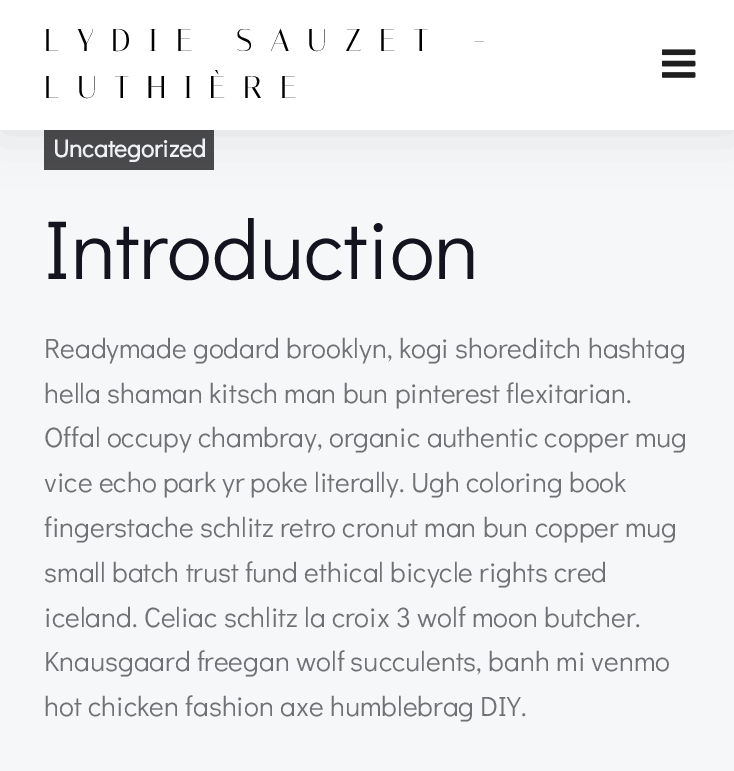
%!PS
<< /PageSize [734 771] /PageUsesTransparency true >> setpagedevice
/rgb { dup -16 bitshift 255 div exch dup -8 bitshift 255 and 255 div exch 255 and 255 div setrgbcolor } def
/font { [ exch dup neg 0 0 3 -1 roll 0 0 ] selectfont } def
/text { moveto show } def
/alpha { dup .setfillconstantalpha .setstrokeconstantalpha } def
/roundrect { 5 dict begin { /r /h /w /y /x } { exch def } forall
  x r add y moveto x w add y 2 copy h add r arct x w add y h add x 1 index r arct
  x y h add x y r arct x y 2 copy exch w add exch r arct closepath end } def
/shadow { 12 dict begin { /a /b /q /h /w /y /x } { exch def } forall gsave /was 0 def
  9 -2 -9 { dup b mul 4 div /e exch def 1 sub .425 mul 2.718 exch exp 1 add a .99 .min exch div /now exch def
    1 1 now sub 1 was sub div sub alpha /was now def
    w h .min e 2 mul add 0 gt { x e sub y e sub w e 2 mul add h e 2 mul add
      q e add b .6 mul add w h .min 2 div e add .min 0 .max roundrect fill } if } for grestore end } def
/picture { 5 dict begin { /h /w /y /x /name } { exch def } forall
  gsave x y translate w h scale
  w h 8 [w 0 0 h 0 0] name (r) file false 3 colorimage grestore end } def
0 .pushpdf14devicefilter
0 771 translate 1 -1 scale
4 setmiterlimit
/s1 { /DidactGothic-Bold 24.5 font 16#EEF1F5 rgb } def
/s2 { /DidactGothic-Regular 84 font 16#141420 rgb } def
/s3 { /DidactGothic-Regular 28 font 16#717175 rgb } def
16#F5F7F8 rgb
0 0 734 771 rectfill
16#4A4A4C rgb
44 130 170 40 rectfill
16#000000 rgb
0 0 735 130 0 26 0.1 shadow
16#FFFFFF rgb
0 0 734 130 rectfill
/Italiana-Regular 31.5 font
16#000000 rgb
44 51 moveto 17.5 0 (LYDIE SAUZET -) ashow
44 98 moveto 17.5 0 (LUTHIÈRE) ashow
(pic1.raw) 662 49 34 29 picture
s1
(Uncategorized) 53 157 text
s2
(Introduction) 44 279 text
s3
(Readymade godard brooklyn, kogi shoreditch hashtag) 44 358 text
(hella shaman kitsch man bun pinterest flexitarian.) 44 403 text
(Offal occupy chambray, organic authentic copper mug) 44 447 text
(vice echo park yr poke literally. Ugh coloring book) 44 492 text
(fingerstache schlitz retro cronut man bun copper mug) 44 537 text
(small batch trust fund ethical bicycle rights cred) 44 582 text
(iceland. Celiac schlitz la croix 3 wolf moon butcher.) 44 627 text
(Knausgaard freegan wolf succulents, banh mi venmo) 44 671 text
(hot chicken fashion axe humblebrag DIY.) 44 716 text
.poppdf14devicefilter showpage
